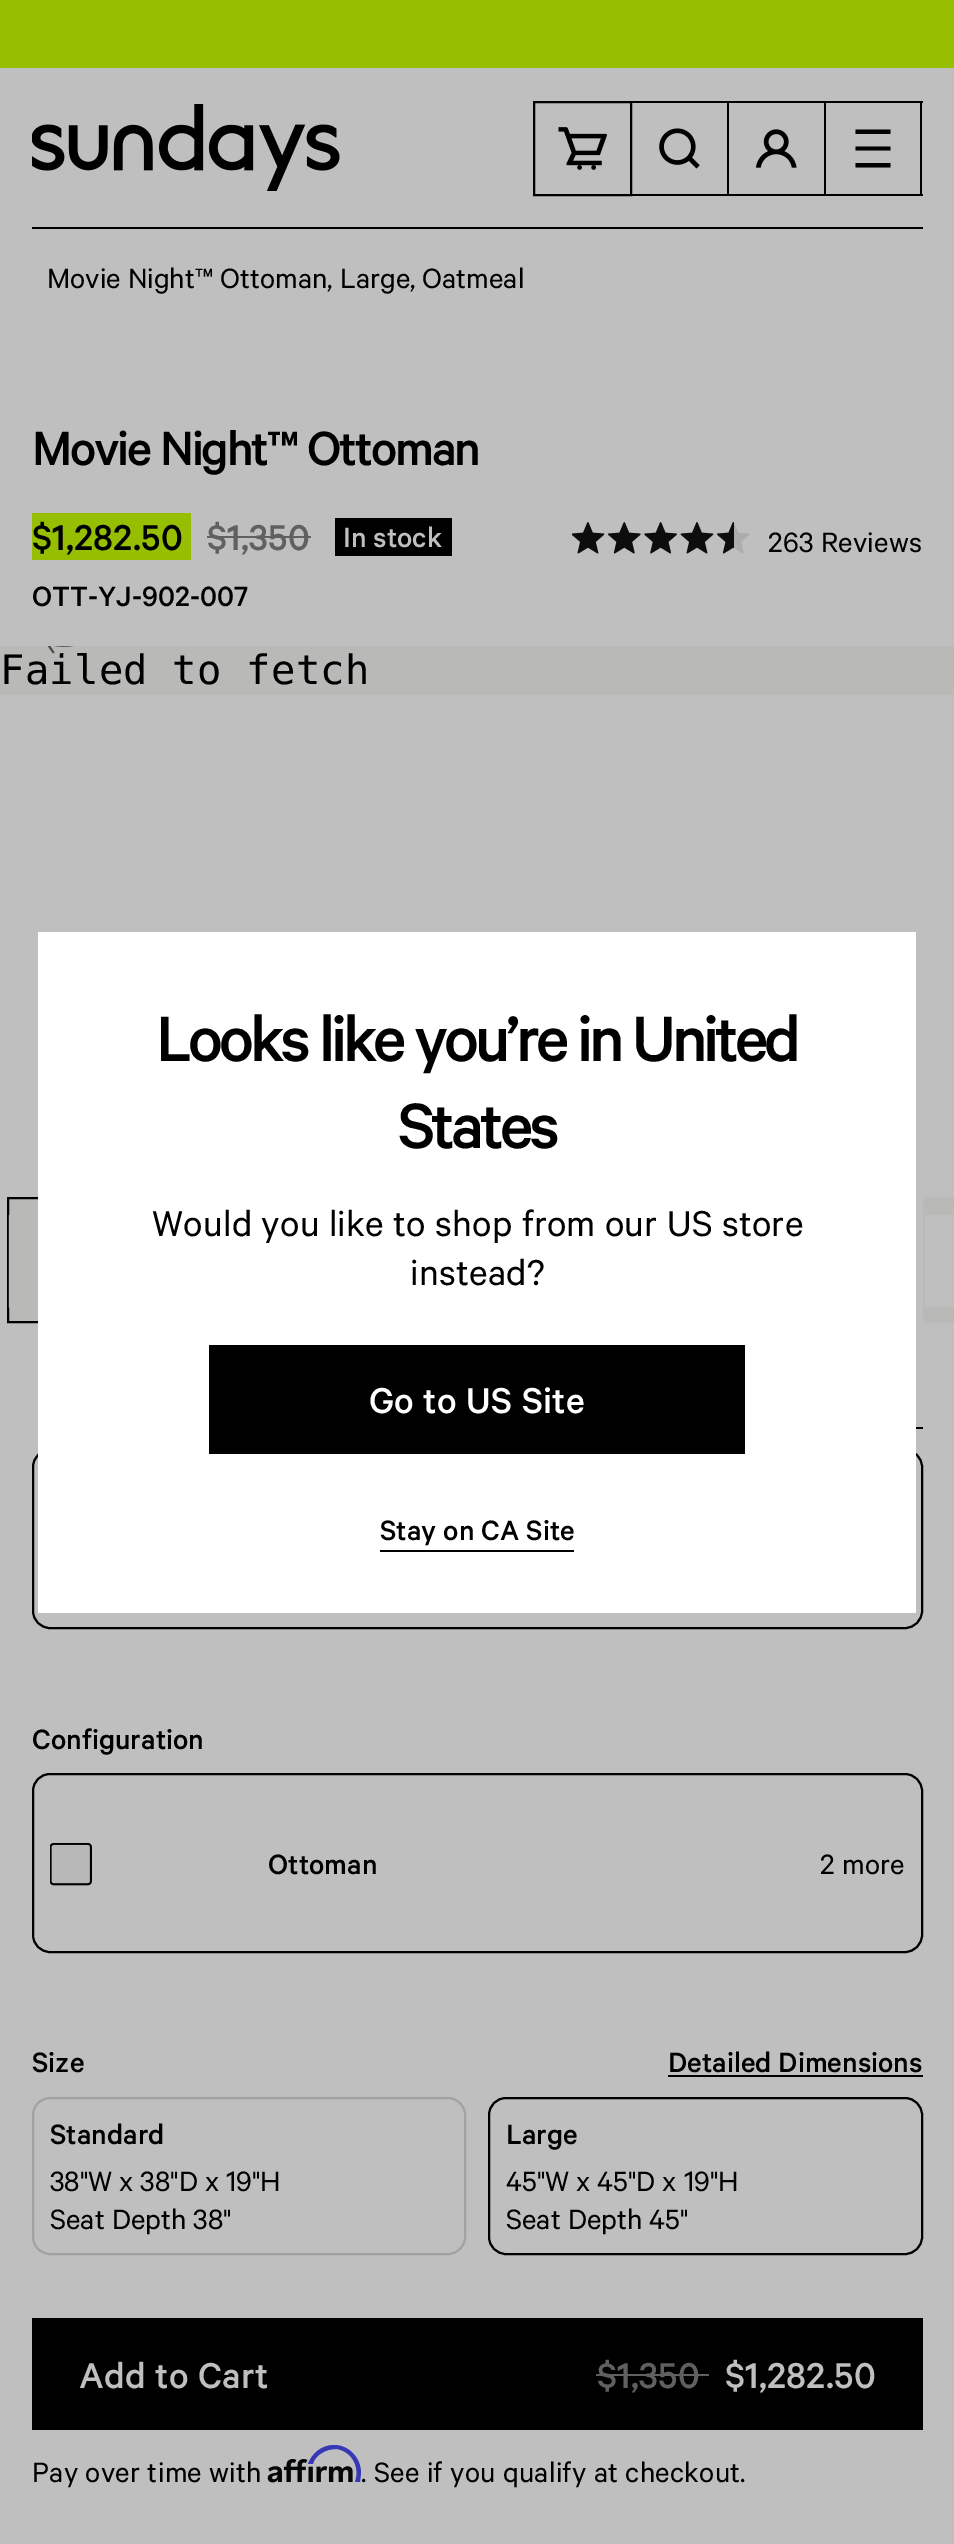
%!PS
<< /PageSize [954 2544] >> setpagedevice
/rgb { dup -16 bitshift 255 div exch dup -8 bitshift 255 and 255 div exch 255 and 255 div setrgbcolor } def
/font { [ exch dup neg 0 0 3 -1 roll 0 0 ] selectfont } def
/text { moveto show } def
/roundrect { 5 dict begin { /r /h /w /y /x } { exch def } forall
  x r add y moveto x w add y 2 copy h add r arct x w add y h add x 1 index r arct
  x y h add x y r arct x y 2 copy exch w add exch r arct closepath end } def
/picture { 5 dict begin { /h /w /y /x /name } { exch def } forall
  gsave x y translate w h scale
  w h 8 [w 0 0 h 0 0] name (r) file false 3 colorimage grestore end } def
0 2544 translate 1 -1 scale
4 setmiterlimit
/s1 { /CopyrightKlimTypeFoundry-Regular 31.5 font 16#000000 rgb } def
/s2 { /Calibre-Medium 31.5 font 16#BFBFBF rgb } def
/s3 { /Calibre-Medium 31.5 font 16#000000 rgb } def
16#BFBFBF rgb
0 0 954 2544 rectfill
16#96BF02 rgb
0 0 954 68 rectfill
(pic1.raw) 32 104 308 87 picture
16#000000 rgb
2 setlinewidth
534 102 97 93 rectstroke
(pic2.raw) 558 127 49 43 picture
632 101 291 2 rectfill
727 101 2 95 rectfill
632 194 97 2 rectfill
(pic3.raw) 659 128 41 41 picture
824 101 2 95 rectfill
729 194 97 2 rectfill
(pic4.raw) 755 129 42 39 picture
920 101 2 95 rectfill
826 194 97 2 rectfill
855.5 163 moveto 890.5 163 lineto 890.5 167.5 lineto 855.5 167.5 lineto closepath 855.5 146.5 moveto 890.5 146.5 lineto 890.5 150.5 lineto 855.5 150.5 lineto closepath 855.5 129.5 moveto 890.5 129.5 lineto 890.5 134 lineto 855.5 134 lineto closepath fill
32 227 891 2 rectfill
s1
(Movie Night™ Ottoman, Large, Oatmeal) 47 288 text
/Calibre-Medium 54 font
32 465 moveto -2.2 0 (Movie Night™ Ottoman) ashow
16#96BF02 rgb
32 513 159 47 rectfill
/Calibre-Medium 40.5 font
16#000000 rgb
32 550 moveto 0.25 0 ($1,282.50) ashow
16#606060 rgb
207 550 moveto 0.25 0 ($1,350) ashow
207 536 104 2 rectfill
16#000000 rgb
335 518 117 38 rectfill
s2
(In stock) 343 547 text
(pic5.raw) 571 522 179 32 picture
(pic6.raw) 572 522 162 32 picture
/CopyrightKlimTypeFoundry-Regular 31.5 font
16#000000 rgb
768 552 moveto 0.25 0 (263 Reviews) ashow
s3
(OTT-YJ-902-007) 32 606 text
16#B9B9B8 rgb
0 646 954 49 rectfill
/DejaVuSansMono-Regular 40.5 font
16#000000 rgb
0 684 moveto 0.25 0 (Failed to fetch) ashow
(pic7.raw) 47 646 27 8 picture
16#B9B9B8 rgb
9 1199 29 122 rectfill
16#000000 rgb
8 1198 169 124 rectstroke
(pic8.raw) 8 1215 30 93 picture
16#B9B9B8 rgb
923 1197 31 126 rectfill
16#BFBFBF rgb
925 1215 29 92 rectfill
16#000000 rgb
916 1427 7 2 rectfill
33 1450 889 178 17 roundrect stroke
s3
(Configuration) 32 1749 text
33 1774 889 178 17 roundrect stroke
(pic9.raw) 50 1843 42 43 picture
(Ottoman) 268 1874 text
/CopyrightKlimTypeFoundry-Regular 31.5 font
820 1874 moveto 0.25 0 (2 more) ashow
s3
(Size) 32 2072 text
(Detailed Dimensions) 668 2072 text
668 2075 255 2 rectfill
16#A2A2A2 rgb
33 2098 432 156 17 roundrect stroke
s3
(Standard) 50 2144 text
s1
(38"W x 38"D x 19"H) 50 2191 text
(Seat Depth 38") 50 2229 text
489 2098 433 156 17 roundrect stroke
s3
(Large) 506 2144 text
s1
(45"W x 45"D x 19"H) 506 2191 text
(Seat Depth 45") 506 2229 text
32 2318 891 112 rectfill
/Calibre-Medium 40.5 font
16#BFBFBF rgb
79 2388 moveto 0.25 0 (Add to Cart) ashow
16#606060 rgb
597 2388 moveto 0.25 0 ($1,350) ashow
596 2374 113 2 rectfill
16#BFBFBF rgb
725 2388 moveto 0.25 0 ($1,282.50) ashow
/CopyrightKlimTypeFoundry-Regular 31.5 font
16#000000 rgb
32 2482 moveto 0.25 0 (Pay over time with) ashow
(pic10.raw) 267 2459 86 24 picture
16#3838B7 rgb
334 2445 moveto 322 2445 312 2453 308 2464 curveto 313 2464 lineto 314 2459 318 2455 322 2453 curveto 326 2450 332 2449 337 2449 curveto 353 2452 360 2468 355 2482 curveto 360 2482 lineto 361 2473 lineto 361 2458 349 2445 334 2445 curveto closepath fill
16#000000 rgb
361 2482 moveto 0.25 0 (. See if you qualify at checkout.) ashow
16#FFFFFF rgb
38 932 878 681 rectfill
/Calibre-Medium 72 font
16#000000 rgb
156 1061 moveto -4.15 0 (Looks like you’re in United) ashow
398 1148 moveto -4.15 0 (States) ashow
/CopyrightKlimTypeFoundry-Regular 40.5 font
152 1236 moveto 0.25 0 (Would you like to shop from our US store) ashow
410 1285 moveto 0.25 0 (instead?) ashow
209 1345 536 109 rectfill
/Calibre-Medium 40.5 font
16#FFFFFF rgb
369 1413 moveto 0.25 0 (Go to US Site) ashow
s3
(Stay on CA Site) 380 1540 text
380 1550 194 2 rectfill
showpage
